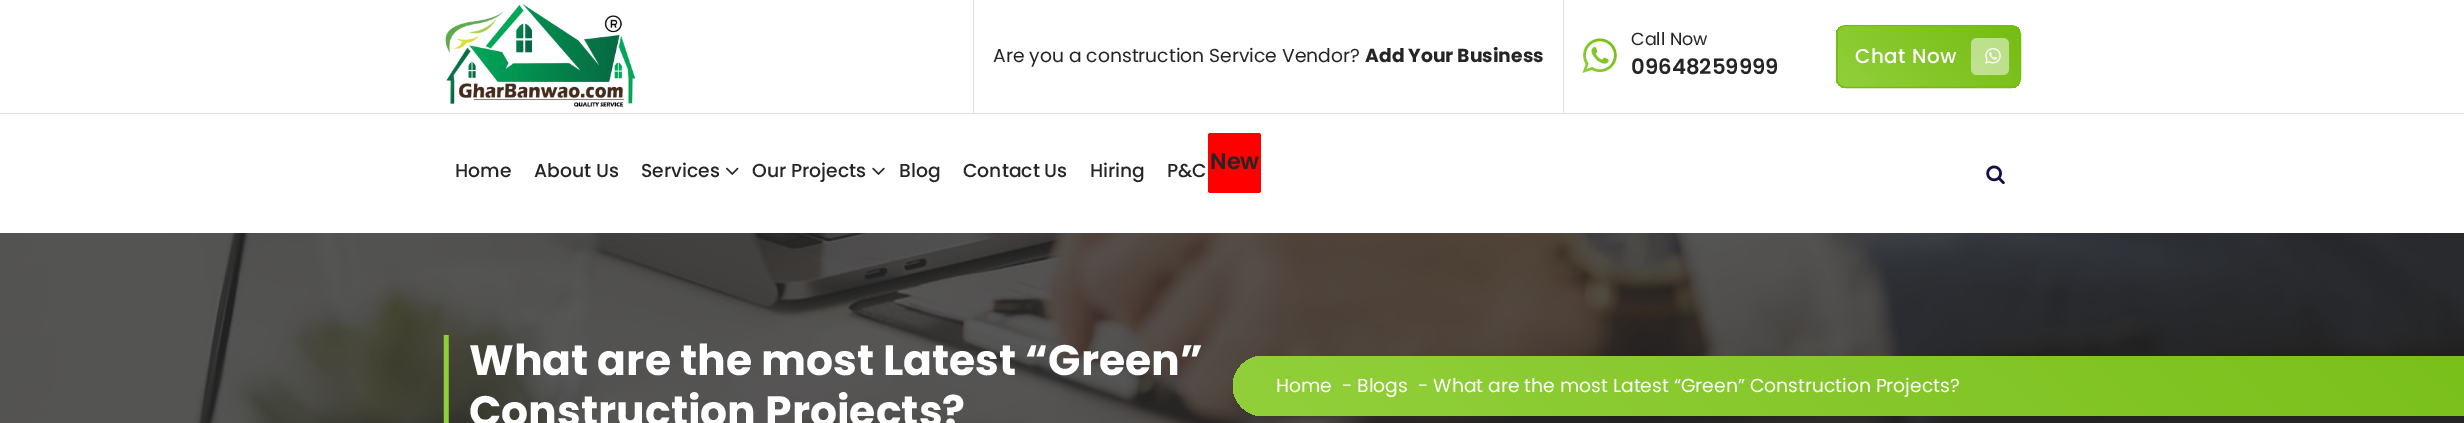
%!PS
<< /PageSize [2464 423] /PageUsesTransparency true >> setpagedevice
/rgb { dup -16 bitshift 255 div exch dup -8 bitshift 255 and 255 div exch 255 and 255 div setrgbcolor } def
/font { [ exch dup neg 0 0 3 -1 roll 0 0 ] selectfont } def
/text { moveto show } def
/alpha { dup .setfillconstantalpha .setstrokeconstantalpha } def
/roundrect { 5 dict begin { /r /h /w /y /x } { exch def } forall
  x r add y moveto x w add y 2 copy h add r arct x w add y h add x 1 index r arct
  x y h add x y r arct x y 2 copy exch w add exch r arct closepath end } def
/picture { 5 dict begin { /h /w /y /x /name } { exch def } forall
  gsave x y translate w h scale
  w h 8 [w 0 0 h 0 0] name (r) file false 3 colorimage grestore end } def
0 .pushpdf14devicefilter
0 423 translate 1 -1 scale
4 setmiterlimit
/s1 { /Poppins-Regular 18.75 font 16#252525 rgb } def
/s2 { /Poppins-Bold 18.75 font 16#252525 rgb } def
/s3 { /Poppins-Regular 17.5 font 16#252525 rgb } def
/s4 { /Poppins-SemiBold 21.25 font 16#252525 rgb } def
/s5 { /Poppins-Medium 18.75 font 16#252525 rgb } def
/s6 { /Poppins-SemiBold 22.5 font 16#252525 rgb } def
/s7 { /Poppins-Bold 42.5 font 16#FFFFFF rgb } def
/s8 { /Poppins-Regular 18.75 font 16#FFFFFF rgb } def
16#FFFFFF rgb
0 0 2464 423 rectfill
(pic1.raw) 445 4 191 103 picture
16#E1E1E1 rgb
973 0 1 113 rectfill
s1
(Are you a construction Service Vendor?) 993 62 text
s2
(Add Your Business) 1365 62 text
16#E1E1E1 rgb
1563 0 1 113 rectfill
(pic2.raw) 1582 38 35 35 picture
s3
(Call Now) 1631 45 text
s4
(09648259999) 1631 74 text
gsave
1836 25 185 63 10 roundrect clip newpath
gsave 1836 26 moveto 1838 26 lineto 1838 86 lineto 1836 86 lineto closepath clip newpath
<< /ShadingType 2 /ColorSpace /DeviceRGB /Coords [1804 -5.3 1689 118] /Extend [true true] /Function << /FunctionType 2 /Domain [0 1] /C0 [0.455 0.737 0.071] /C1 [0.573 0.816 0.231] /N 1 >> >> shfill grestore
gsave 1838 26 moveto 2020 26 lineto 2020 86 lineto 1838 86 lineto closepath clip newpath
<< /ShadingType 2 /ColorSpace /DeviceRGB /Coords [1986 -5.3 1871 118] /Extend [true true] /Function << /FunctionType 2 /Domain [0 1] /C0 [0.455 0.737 0.071] /C1 [0.573 0.816 0.231] /N 1 >> >> shfill grestore
gsave 1838 86 moveto 2020 86 lineto 2020 88 lineto 1838 88 lineto closepath clip newpath
<< /ShadingType 2 /ColorSpace /DeviceRGB /Coords [1986 55 1871 178] /Extend [true true] /Function << /FunctionType 2 /Domain [0 1] /C0 [0.455 0.737 0.071] /C1 [0.573 0.816 0.231] /N 1 >> >> shfill grestore
grestore
16#74BC12 rgb
1836.5 25.5 184 62 9.5 roundrect stroke
/Poppins-Medium 20 font
16#FFFFFF rgb
1855 63 moveto 0.5 0 (Chat Now) ashow
0.5 alpha
1971 38 38 37 6 roundrect fill
1 alpha
(pic3.raw) 1985 48 16 16 picture
16#E1E1E1 rgb
0 113 2464 1 rectfill
s5
(Home) 455 177 text
(About Us) 534 177 text
(Services) 641 177 text
(pic4.raw) 726 167 13 8 picture
(Our Projects) 752 177 text
(pic5.raw) 872 167 13 8 picture
(Blog) 899 177 text
(Contact Us) 963 177 text
(Hiring) 1090 177 text
(P&C) 1167 177 text
16#FF0000 rgb
1208 133 53 60 2.5 roundrect fill
s6
(New) 1210 169 text
(pic6.raw) 1986 165 19 20 picture
(pic7.raw) 0 233 2464 190 picture
(pic8.raw) 443 335 6 88 picture
s7
(What are the most Latest “Green”) 469 375 text
(Construction Projects?) 469 426 text
gsave 1263 356 moveto 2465 356 lineto 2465 416 lineto 1263 416 lineto 1246.5 416 1233 402.5 1233 386 curveto 1233 369.5 1246.5 356 1263 356 curveto closepath clip newpath
<< /ShadingType 2 /ColorSpace /DeviceRGB /Coords [2403 -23 1639 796] /Extend [true true] /Function << /FunctionType 2 /Domain [0 1] /C0 [0.455 0.737 0.071] /C1 [0.573 0.816 0.231] /N 1 >> >> shfill grestore
s8
(Home) 1276 392 text
(- Blogs) 1342 392 text
(- What are the most Latest “Green” Construction Projects?) 1418 392 text
.poppdf14devicefilter showpage
